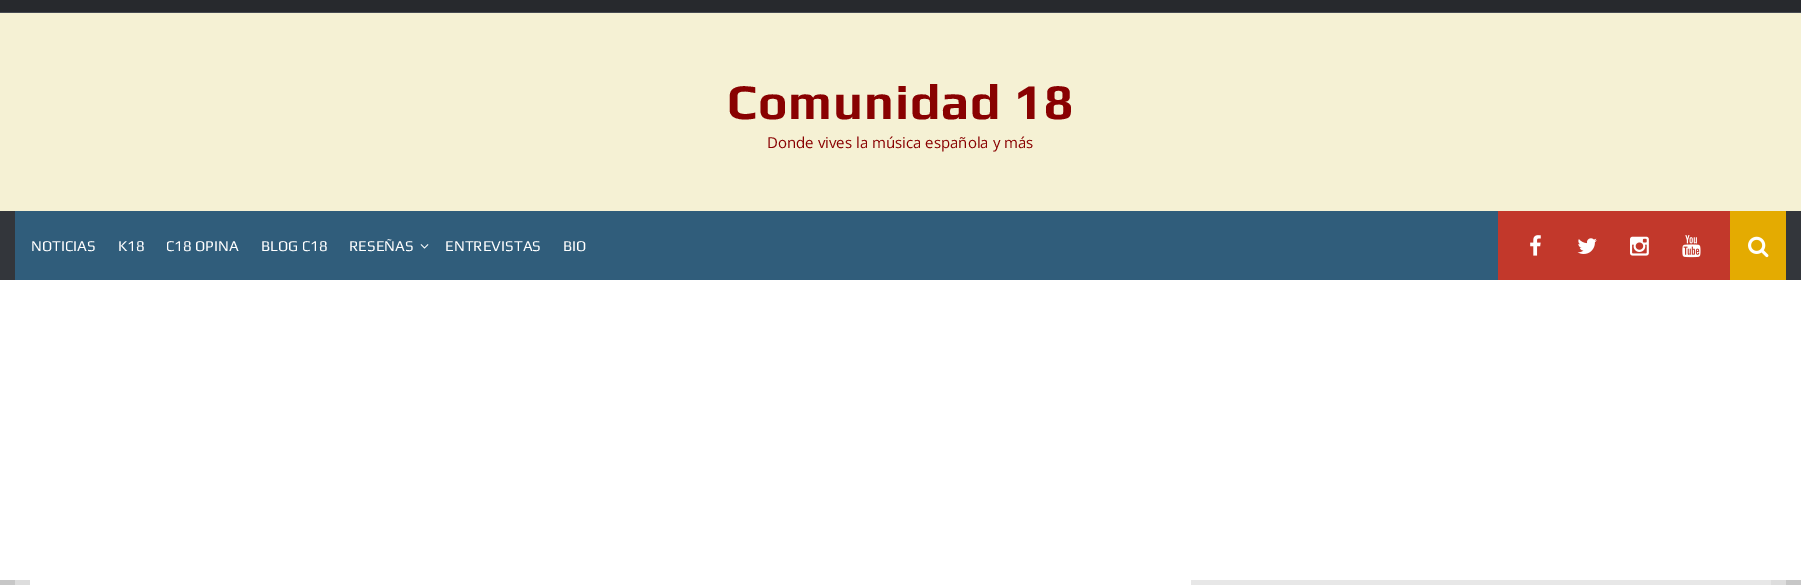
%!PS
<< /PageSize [1801 585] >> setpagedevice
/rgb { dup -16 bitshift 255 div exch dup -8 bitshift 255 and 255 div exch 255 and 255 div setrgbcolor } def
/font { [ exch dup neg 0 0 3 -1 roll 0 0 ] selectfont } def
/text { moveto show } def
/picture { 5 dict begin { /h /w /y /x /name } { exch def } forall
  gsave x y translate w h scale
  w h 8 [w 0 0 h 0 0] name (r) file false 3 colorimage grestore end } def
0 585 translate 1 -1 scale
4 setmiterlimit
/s1 { /OpenSans-Regular 15 font 16#890101 rgb } def
/s2 { /Play-Regular 15 font 16#FFFFFF rgb } def
16#FFFFFF rgb
0 0 1801 585 rectfill
16#27292D rgb
0 0 1801 12 rectfill
16#F5F1D4 rgb
0 13 1801 198 rectfill
16#464A51 rgb
0 12 1801 1 rectfill
/Play-Bold 50 font
16#890101 rgb
727 119 moveto 1 0 (Comunidad 18) ashow
s1
(Donde vives la música española y más) 767 148 text
16#305D7B rgb
15 211 1483 69 rectfill
16#33363B rgb
1786 211 15 69 rectfill
0 211 15 69 rectfill
s2
(NOTICIAS) 31 251 text
(K18) 118 251 text
(C18 OPINA) 166 251 text
(BLOG C18) 261 251 text
(RESEÑAS) 349 251 text
(pic1.raw) 420 244 9 5 picture
(ENTREVISTAS) 445 251 text
(BIO) 563 251 text
16#C2382B rgb
1498 211 232 69 rectfill
(pic2.raw) 1530 235 11 21 picture
(pic3.raw) 1577 238 20 16 picture
(pic4.raw) 1630 236 19 20 picture
(pic5.raw) 1682 235 19 23 picture
16#E4AB01 rgb
1730 211 56 69 rectfill
(pic6.raw) 1748 236 21 22 picture
16#DDDDDD rgb
15 580 1771 5 rectfill
16#C7C7C7 rgb
1786 580 15 5 rectfill
0 580 15 5 rectfill
16#FFFFFF rgb
30 580 1161 5 rectfill
16#E7E7E7 rgb
1191 580 580 5 rectfill
showpage
